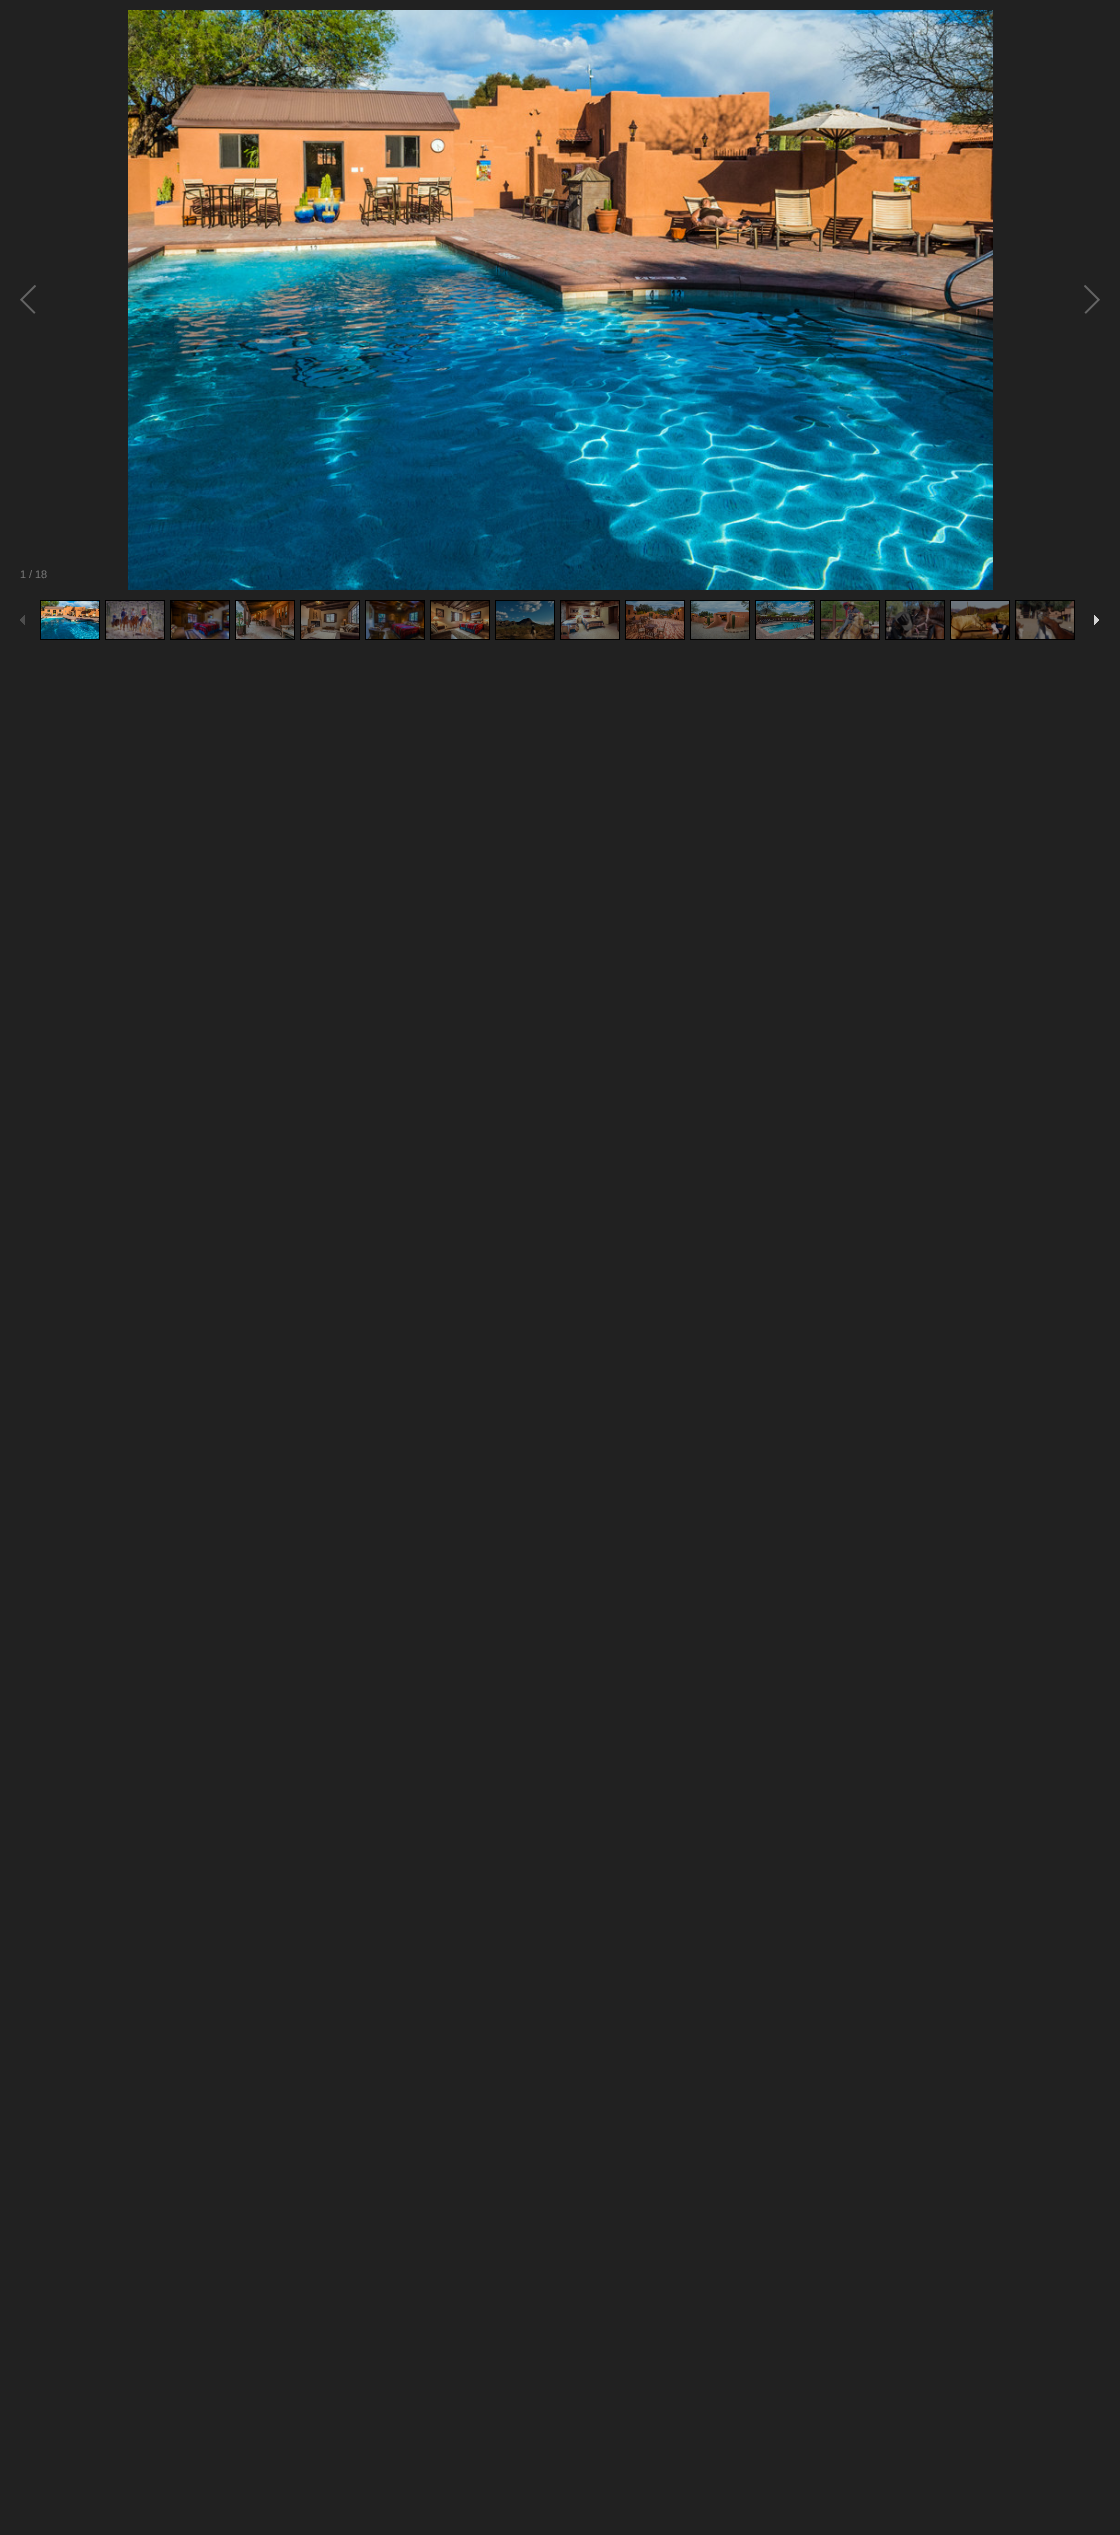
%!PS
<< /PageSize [1120 2535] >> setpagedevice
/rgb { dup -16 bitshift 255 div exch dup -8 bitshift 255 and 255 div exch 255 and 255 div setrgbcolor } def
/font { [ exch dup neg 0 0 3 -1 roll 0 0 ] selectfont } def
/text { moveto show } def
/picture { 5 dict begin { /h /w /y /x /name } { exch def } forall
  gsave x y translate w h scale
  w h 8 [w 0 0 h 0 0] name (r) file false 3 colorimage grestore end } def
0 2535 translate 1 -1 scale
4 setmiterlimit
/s1 { /LiberationSans-Regular 11 font 16#7A7A7A rgb } def
16#212121 rgb
0 0 1120 2535 rectfill
(pic1.raw) 128 10 865 580 picture
(pic2.raw) 20 285 16 29 picture
(pic3.raw) 1084 285 16 29 picture
s1
(1 / 18) 20 578 text
(pic4.raw) 20 615 5 10 picture
16#000000 rgb
40 600 60 40 rectfill
(pic5.raw) 41 601 58 38 picture
105 600 60 40 rectfill
(pic6.raw) 106 601 58 38 picture
170 600 60 40 rectfill
(pic7.raw) 171 601 58 38 picture
235 600 60 40 rectfill
(pic8.raw) 236 601 58 38 picture
300 600 60 40 rectfill
(pic9.raw) 301 601 58 38 picture
365 600 60 40 rectfill
(pic10.raw) 366 601 58 38 picture
430 600 60 40 rectfill
(pic11.raw) 431 601 58 38 picture
495 600 60 40 rectfill
(pic12.raw) 496 601 58 38 picture
560 600 60 40 rectfill
(pic13.raw) 561 601 58 38 picture
625 600 60 40 rectfill
(pic14.raw) 626 601 58 38 picture
690 600 60 40 rectfill
(pic15.raw) 691 601 58 38 picture
755 600 60 40 rectfill
(pic16.raw) 756 601 58 38 picture
820 600 60 40 rectfill
(pic17.raw) 821 601 58 38 picture
885 600 60 40 rectfill
(pic18.raw) 886 601 58 38 picture
950 600 60 40 rectfill
(pic19.raw) 951 601 58 38 picture
1015 600 60 40 rectfill
(pic20.raw) 1016 601 58 38 picture
(pic21.raw) 1094 615 5 10 picture
showpage
